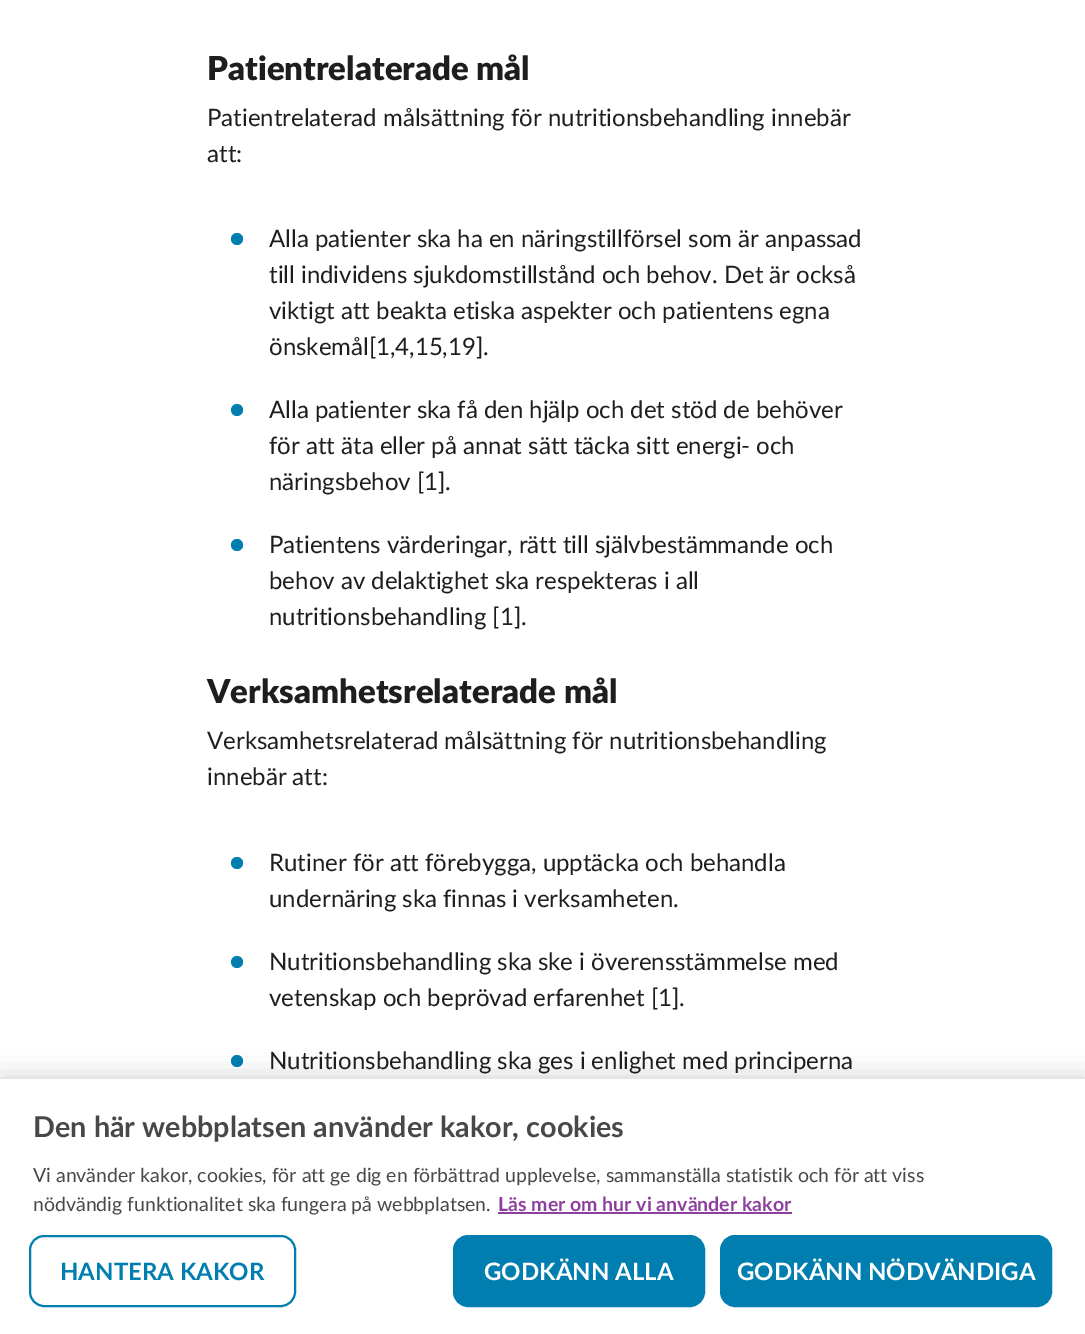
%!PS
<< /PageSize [1085 1334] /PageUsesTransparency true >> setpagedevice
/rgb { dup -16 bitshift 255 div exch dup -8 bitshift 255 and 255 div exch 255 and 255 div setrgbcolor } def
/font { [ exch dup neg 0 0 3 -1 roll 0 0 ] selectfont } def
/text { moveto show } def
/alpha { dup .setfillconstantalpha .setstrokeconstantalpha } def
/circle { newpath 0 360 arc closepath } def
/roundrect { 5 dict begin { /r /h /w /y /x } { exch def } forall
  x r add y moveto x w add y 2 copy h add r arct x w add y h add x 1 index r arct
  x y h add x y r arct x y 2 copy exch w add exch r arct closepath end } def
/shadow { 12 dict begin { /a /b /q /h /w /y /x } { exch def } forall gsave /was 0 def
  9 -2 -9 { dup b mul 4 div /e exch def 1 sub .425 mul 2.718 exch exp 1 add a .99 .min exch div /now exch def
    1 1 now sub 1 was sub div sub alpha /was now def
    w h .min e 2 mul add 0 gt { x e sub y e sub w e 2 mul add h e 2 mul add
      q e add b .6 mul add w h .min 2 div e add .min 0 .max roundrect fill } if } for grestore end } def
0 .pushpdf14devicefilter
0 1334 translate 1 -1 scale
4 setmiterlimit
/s1 { /Lato-ExtraBold 33 font 16#1E1E1E rgb } def
/s2 { /Lato-Regular 24 font 16#1E1E1E rgb } def
/s3 { /Lato-Bold 28.8 font 16#484848 rgb } def
/s4 { /Lato-Regular 19.5 font 16#484848 rgb } def
/s5 { /Lato-Bold 19.5 font 16#8D3F9E rgb } def
/s6 { /Lato-Bold 24 font 16#007EB0 rgb } def
/s7 { /Lato-Bold 24 font 16#FFFFFF rgb } def
16#FFFFFF rgb
0 0 1085 1334 rectfill
s1
(Patientrelaterade mål) 207 80 text
s2
(Patientrelaterad målsättning för nutritionsbehandling innebär) 207 126 text
(att:) 207 162 text
16#007EB0 rgb
237 239 6 circle fill
s2
(Alla patienter ska ha en näringstillförsel som är anpassad) 269 247 text
(till individens sjukdomstillstånd och behov. Det är också) 269 283 text
(viktigt att beakta etiska aspekter och patientens egna) 269 319 text
(önskemål[1,4,15,19].) 269 355 text
16#007EB0 rgb
237 410 6 circle fill
s2
(Alla patienter ska få den hjälp och det stöd de behöver) 269 418 text
(för att äta eller på annat sätt täcka sitt energi- och) 269 454 text
(näringsbehov [1].) 269 490 text
16#007EB0 rgb
237 545 6 circle fill
s2
(Patientens värderingar, rätt till självbestämmande och) 269 553 text
(behov av delaktighet ska respekteras i all) 269 589 text
(nutritionsbehandling [1].) 269 625 text
s1
(Verksamhetsrelaterade mål) 207 703 text
s2
(Verksamhetsrelaterad målsättning för nutritionsbehandling) 207 749 text
(innebär att:) 207 785 text
16#007EB0 rgb
237 863 6 circle fill
s2
(Rutiner för att förebygga, upptäcka och behandla) 269 871 text
(undernäring ska finnas i verksamheten.) 269 907 text
16#007EB0 rgb
237 962 6 circle fill
s2
(Nutritionsbehandling ska ske i överensstämmelse med) 269 970 text
(vetenskap och beprövad erfarenhet [1].) 269 1006 text
16#007EB0 rgb
237 1061 6 circle fill
s2
(Nutritionsbehandling ska ges i enlighet med principerna) 269 1069 text
16#000000 rgb
0 1079 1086 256 0 13.5 0.2 shadow
16#FFFFFF rgb
0 1079 1085 255 rectfill
s3
(Den här webbplatsen använder kakor, cookies) 33 1137 text
s4
(Vi använder kakor, cookies, för att ge dig en förbättrad upplevelse,) 33 1182 text
(sammanställa statistik och för att viss) 606 1182 text
(nödvändig funktionalitet ska fungera på webbplatsen.) 33 1211 text
s5
(Läs mer om hur vi använder kakor) 498 1211 text
498 1212 294 2 rectfill
16#007EB0 rgb
2 setlinewidth
30 1236 265 70 14 roundrect stroke
s6
(HANTERA KAKOR) 60 1280 text
454 1236 250 70 14 roundrect gsave fill grestore
stroke
s7
(GODKÄNN ALLA) 484 1280 text
16#007EB0 rgb
721 1236 330 70 14 roundrect gsave fill grestore
stroke
s7
(GODKÄNN NÖDVÄNDIGA) 737 1280 text
.poppdf14devicefilter showpage
